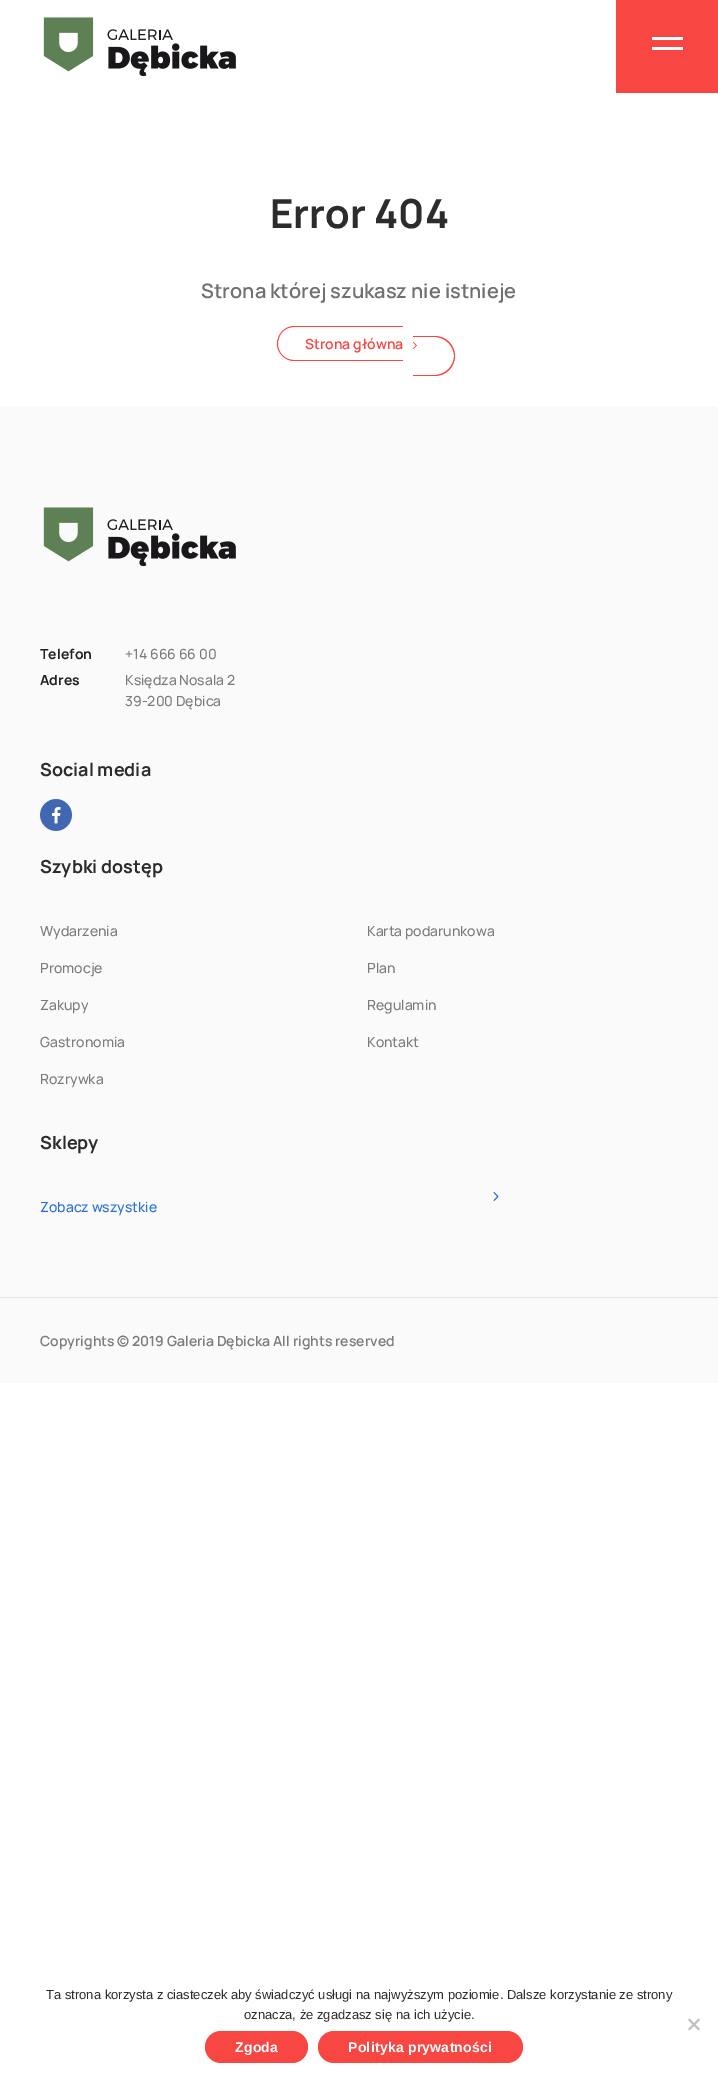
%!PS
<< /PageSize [718 2078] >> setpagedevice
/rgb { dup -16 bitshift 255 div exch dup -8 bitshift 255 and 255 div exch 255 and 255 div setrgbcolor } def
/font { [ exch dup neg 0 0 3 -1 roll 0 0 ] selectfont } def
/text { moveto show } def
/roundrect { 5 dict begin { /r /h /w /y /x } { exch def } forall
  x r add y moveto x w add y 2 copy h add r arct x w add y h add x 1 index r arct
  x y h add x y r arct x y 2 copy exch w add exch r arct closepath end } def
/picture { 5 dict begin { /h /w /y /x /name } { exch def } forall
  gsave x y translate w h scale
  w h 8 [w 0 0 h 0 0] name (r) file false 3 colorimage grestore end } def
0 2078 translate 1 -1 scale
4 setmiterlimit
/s1 { /Manrope-Bold 40 font 16#2C2C2C rgb } def
/s2 { /Manrope-SemiBold 20 font 16#707070 rgb } def
/s3 { /Manrope-SemiBold 14 font 16#F84742 rgb } def
/s4 { /Manrope-Bold 14 font 16#222222 rgb } def
/s5 { /Manrope-Medium 14 font 16#7B7B7B rgb } def
/s6 { /Manrope-Bold 18 font 16#2C2C2C rgb } def
/s7 { /Manrope-Medium 14 font 16#266DD9 rgb } def
/s8 { /Manrope-SemiBold 14 font 16#7B7B7B rgb } def
/s9 { /LiberationSans-Regular 13 font 16#2C2C2C rgb } def
16#FFFFFF rgb
0 0 718 2078 rectfill
(pic1.raw) 43 17 193 60 picture
16#F84742 rgb
616 0 102 93 rectfill
16#FFFFFF rgb
652 37 31 3 rectfill
652 47 31 3 rectfill
s1
(Error 404) 270 228 text
s2
(Strona której szukasz nie istnieje) 201 298 text
16#F84742 rgb
294 326 moveto 403 326 lineto 403 361 lineto 294 361 lineto 285 361 277 353 277 344 curveto 277 334 285 326 294 326 curveto closepath 294 327 moveto 403 327 lineto 403 360 lineto 294 360 lineto 285 360 278 353 278 344 curveto 278 334 285 327 294 327 curveto closepath eofill
413 336 moveto 435 336 lineto 446 336 455 345 455 356 curveto 455 367 446 376 435 376 curveto 413 376 lineto closepath 413 337 moveto 435 337 lineto 445 337 454 346 454 356 curveto 454 366 445 375 435 375 curveto 413 375 lineto closepath eofill
s3
(Strona główna) 305 349 text
(pic2.raw) 413 342 4 7 picture
16#FAFAFA rgb
0 406 718 977 rectfill
(pic3.raw) 43 507 193 60 picture
s4
(Telefon) 40 659 text
s5
(+14 666 66 00) 125 659 text
s4
(Adres) 40 685 text
s5
(Księdza Nosala 2) 125 685 text
(39-200 Dębica) 125 706 text
s6
(Social media) 40 776 text
(pic4.raw) 40 799 32 32 picture
(Szybki dostęp) 40 873 text
s5
(Wydarzenia) 40 936 text
(Karta podarunkowa) 367 936 text
(Promocje) 40 973 text
(Plan) 367 973 text
(Zakupy) 40 1010 text
(Regulamin) 367 1010 text
(Gastronomia) 40 1047 text
(Kontakt) 367 1047 text
(Rozrywka) 40 1084 text
s6
(Sklepy) 40 1149 text
(pic5.raw) 493 1192 6 9 picture
s7
(Zobacz wszystkie) 40 1212 text
16#E5E5E5 rgb
0 1297 718 1 rectfill
s8
(Copyrights © 2019 Galeria Dębicka All rights reserved) 40 1346 text
s9
(Ta strona korzysta z ciasteczek aby świadczyć usługi na najwyższym poziomie. Dalsze korzystanie ze strony) 46 1999 text
(oznacza, że zgadzasz się na ich użycie.) 244 2019 text
16#C0C0C0 rgb
698.5 2018.5 moveto 700 2020 lineto 689.5 2030.5 lineto 688 2029 lineto closepath fill
688 2020 moveto 689.5 2018.5 lineto 700 2029 lineto 698.5 2030.5 lineto closepath fill
16#F84742 rgb
205 2031 103 32 16 roundrect fill
/LiberationSans-Bold 14 font
16#FFFFFF rgb
235 2052 moveto 0.25 0 (Zgoda) ashow
16#F84742 rgb
318 2031 205 32 16 roundrect fill
16#FFFFFF rgb
348 2052 moveto 0.25 0 (Polityka prywatności) ashow
showpage
